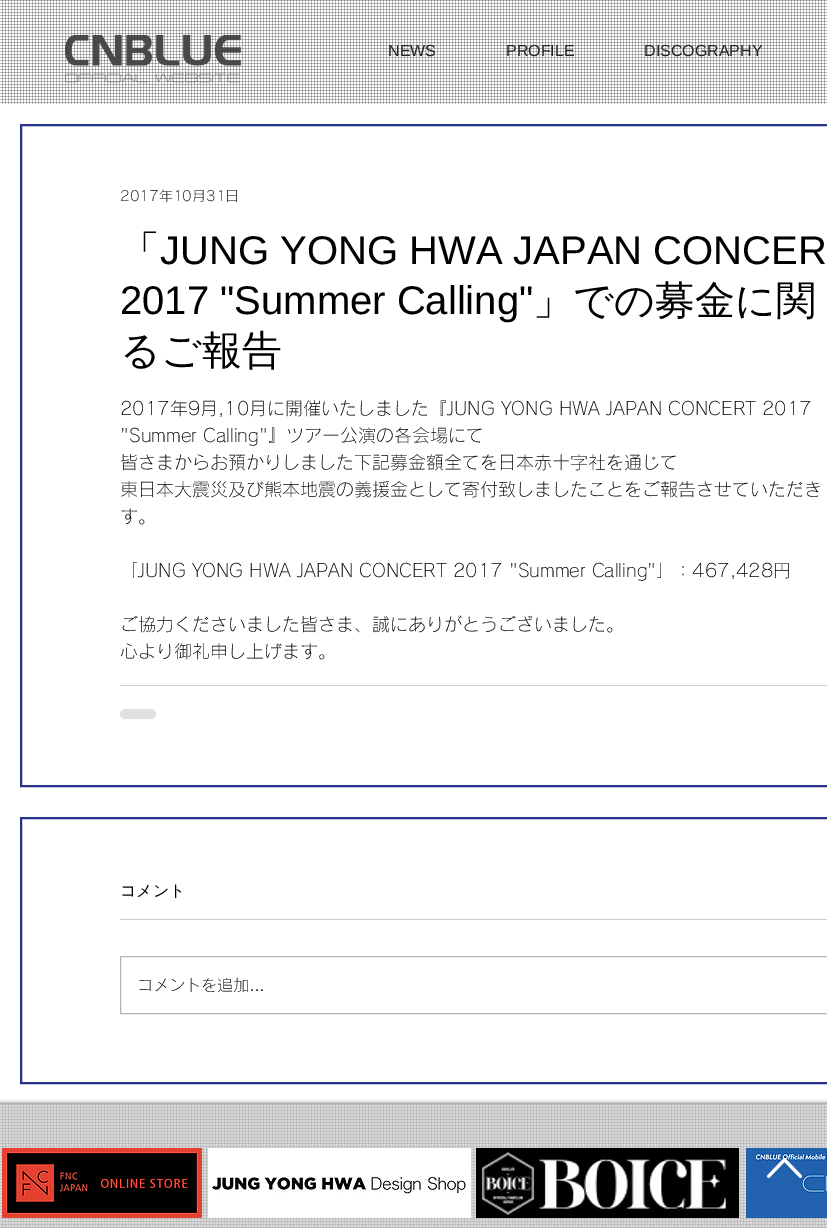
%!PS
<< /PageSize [827 1228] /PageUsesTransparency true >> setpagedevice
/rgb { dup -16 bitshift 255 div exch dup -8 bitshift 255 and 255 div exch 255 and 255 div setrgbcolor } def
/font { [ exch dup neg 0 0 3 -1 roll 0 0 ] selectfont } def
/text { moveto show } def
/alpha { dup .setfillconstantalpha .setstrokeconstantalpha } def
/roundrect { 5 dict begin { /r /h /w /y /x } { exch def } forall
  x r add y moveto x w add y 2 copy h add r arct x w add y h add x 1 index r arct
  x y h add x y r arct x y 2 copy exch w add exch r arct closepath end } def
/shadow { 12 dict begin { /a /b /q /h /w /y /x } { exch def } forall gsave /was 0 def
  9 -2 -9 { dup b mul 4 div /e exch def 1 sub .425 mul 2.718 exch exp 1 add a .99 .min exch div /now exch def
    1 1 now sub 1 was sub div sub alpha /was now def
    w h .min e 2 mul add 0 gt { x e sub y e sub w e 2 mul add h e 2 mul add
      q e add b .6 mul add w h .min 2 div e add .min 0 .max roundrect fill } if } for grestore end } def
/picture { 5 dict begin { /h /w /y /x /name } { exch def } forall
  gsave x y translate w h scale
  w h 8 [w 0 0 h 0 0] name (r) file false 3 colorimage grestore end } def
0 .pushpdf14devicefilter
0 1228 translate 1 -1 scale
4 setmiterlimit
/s1 { /LiberationSans-Regular 16 font 16#242323 rgb } def
/s2 { /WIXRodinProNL-Light 14 font 16#000000 rgb } def
/s3 { /WenQuanYiZenHei-Medium 40 font 16#000000 rgb } def
/s4 { /LiberationSans-Regular 40 font 16#000000 rgb } def
/s5 { /WIXRodinProNL-Light 18 font 16#000000 rgb } def
/s6 { /WenQuanYiZenHei-Medium 16 font 16#000000 rgb } def
/s7 { /WIXRodinProNL-Light 16 font 16#000000 rgb } def
/s8 { /LiberationSans-Regular 16 font 16#000000 rgb } def
16#FFFFFF rgb
0 0 827 1228 rectfill
(pic1.raw) 0 0 827 1228 picture
0.2 alpha
0 0 827 104 rectfill
1 alpha
(pic2.raw) 65 35 176 48 picture
s1
(NEWS) 388 56 text
(PROFILE) 506 56 text
(DISCOGRAPHY) 644 56 text
16#FFFFFF rgb
0 104 827 1000 rectfill
16#25318D rgb
2 setlinewidth
21 125 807 661 rectstroke
s2
(2017年10月31日) 120 201 text
s3
(「) 120 264 text
s4
(JUNG YONG HWA JAPAN CONCER) 160 264 text
(2017 "Summer Calling") 120 314 text
s3
(」での募金に関) 533 314 text
(るご報告) 120 364 text
s5
(2017年9月,10月に開催いたしました『JUNG YONG HWA JAPAN CONCERT 2017) 120 415 text
("Summer Calling"』ツアー公演の各会場にて) 120 442 text
(皆さまからお預かりしました下記募金額全てを日本赤十字社を通じて) 120 469 text
(東日本大震災及び熊本地震の義援金として寄付致しましたことをご報告させていただき) 120 496 text
(す。) 120 523 text
(「JUNG YONG HWA JAPAN CONCERT 2017 "Summer Calling"」：467,428円) 120 577 text
(ご協力くださいました皆さま、誠にありがとうございました。) 120 631 text
(心より御礼申し上げます。) 120 658 text
16#CCCCCC rgb
120 685 707 1 rectfill
16#E0E0E0 rgb
120 709 36 10 5 roundrect fill
16#25318D rgb
21 818 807 265 rectstroke
s6
(コメント) 120 896 text
16#CCCCCC rgb
120 919 707 1 rectfill
16#B3B3B3 rgb
1 setlinewidth
120.5 956.5 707 57 rectstroke
s7
(コメントを追加) 137 991 text
s8
(…) 249 991 text
gsave
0 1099 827 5 rectclip
0 1104 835 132 0 2.5 0.7 shadow
grestore
0.74 alpha
16#C7C7C7 rgb
0 1104 827 124 rectfill
0.09 alpha
16#FFFFFF rgb
0 1104 827 124 rectfill
1 alpha
(pic3.raw) 2 1148 200 70 picture
(pic4.raw) 208 1148 263 70 picture
(pic5.raw) 476 1148 263 70 picture
(pic6.raw) 746 1148 81 70 picture
(pic7.raw) 767 1158 35 20 picture
.poppdf14devicefilter showpage
